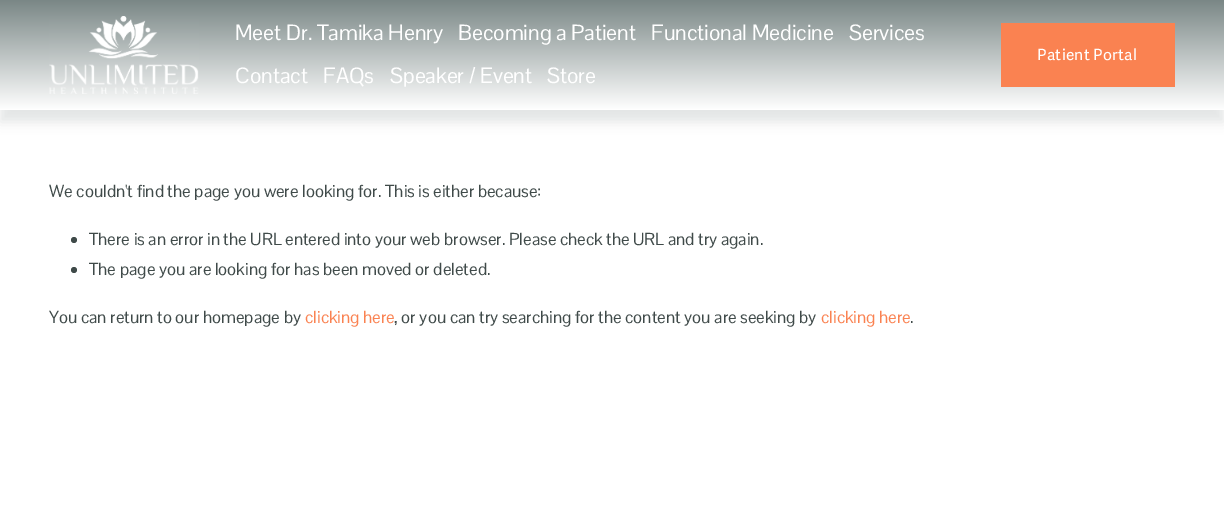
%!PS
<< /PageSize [1224 531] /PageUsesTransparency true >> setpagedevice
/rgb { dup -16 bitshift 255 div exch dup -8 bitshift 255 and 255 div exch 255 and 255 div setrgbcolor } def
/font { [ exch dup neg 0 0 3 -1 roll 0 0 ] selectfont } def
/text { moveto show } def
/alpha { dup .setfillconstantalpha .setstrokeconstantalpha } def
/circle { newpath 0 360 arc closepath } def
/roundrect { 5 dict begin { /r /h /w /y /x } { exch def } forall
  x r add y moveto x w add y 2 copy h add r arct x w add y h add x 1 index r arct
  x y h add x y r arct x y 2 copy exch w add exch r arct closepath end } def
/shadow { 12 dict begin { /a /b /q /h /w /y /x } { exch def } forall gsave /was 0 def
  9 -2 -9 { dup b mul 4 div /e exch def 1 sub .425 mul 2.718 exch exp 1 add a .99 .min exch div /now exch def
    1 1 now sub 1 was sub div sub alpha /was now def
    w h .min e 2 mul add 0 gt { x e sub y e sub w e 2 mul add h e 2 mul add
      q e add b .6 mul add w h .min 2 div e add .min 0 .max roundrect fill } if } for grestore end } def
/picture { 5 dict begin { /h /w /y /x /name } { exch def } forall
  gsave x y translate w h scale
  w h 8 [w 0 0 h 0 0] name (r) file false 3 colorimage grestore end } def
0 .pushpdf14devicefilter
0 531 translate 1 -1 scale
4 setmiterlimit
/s1 { /PontanoSans-Regular 21.5 font 16#FFFFFF rgb } def
/s2 { /PontanoSans-Regular 17 font 16#3F4A49 rgb } def
/s3 { /PontanoSans-Regular 17 font 16#FA8251 rgb } def
16#FFFFFF rgb
0 0 1224 531 rectfill
16#E2E4E4 rgb
0 12 1224 110 0 6 1 shadow
gsave 0 0 moveto 1224 0 lineto 1224 110 lineto 0 110 lineto closepath clip newpath
<< /ShadingType 2 /ColorSpace /DeviceRGB /Coords [612 0 612 110] /Extend [true true] /Function << /FunctionType 2 /Domain [0 1] /C0 [0.478 0.529 0.525] /C1 [1 1 1] /N 1 >> >> shfill grestore
(pic1.raw) 49 16 150 78 picture
s1
(Meet Dr. Tamika Henry) 235 40 text
(Becoming a Patient) 458 40 text
(Functional Medicine) 651 40 text
(Services) 849 40 text
(Contact) 235 83 text
(FAQs) 323 83 text
(Speaker / Event) 390 83 text
(Store) 547 83 text
16#FA8251 rgb
1001 23 174 64 rectfill
/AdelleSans-Regular 15.5 font
16#FFFFFF rgb
1037 60 moveto 0.25 0 (Patient Portal) ashow
s2
(We couldn't find the page you were looking for. This is either because:) 49 197 text
74 240 3 circle fill
(There is an error in the URL entered into your web browser. Please check the URL and try again.) 89 245 text
74 270 3 circle fill
(The page you are looking for has been moved or deleted.) 89 275 text
(You can return to our homepage by) 49 323 text
s3
(clicking here) 305 323 text
s2
(, or you can try searching for the content you are seeking by) 394 323 text
s3
(clicking here) 821 323 text
s2
(.) 910 323 text
.poppdf14devicefilter showpage
